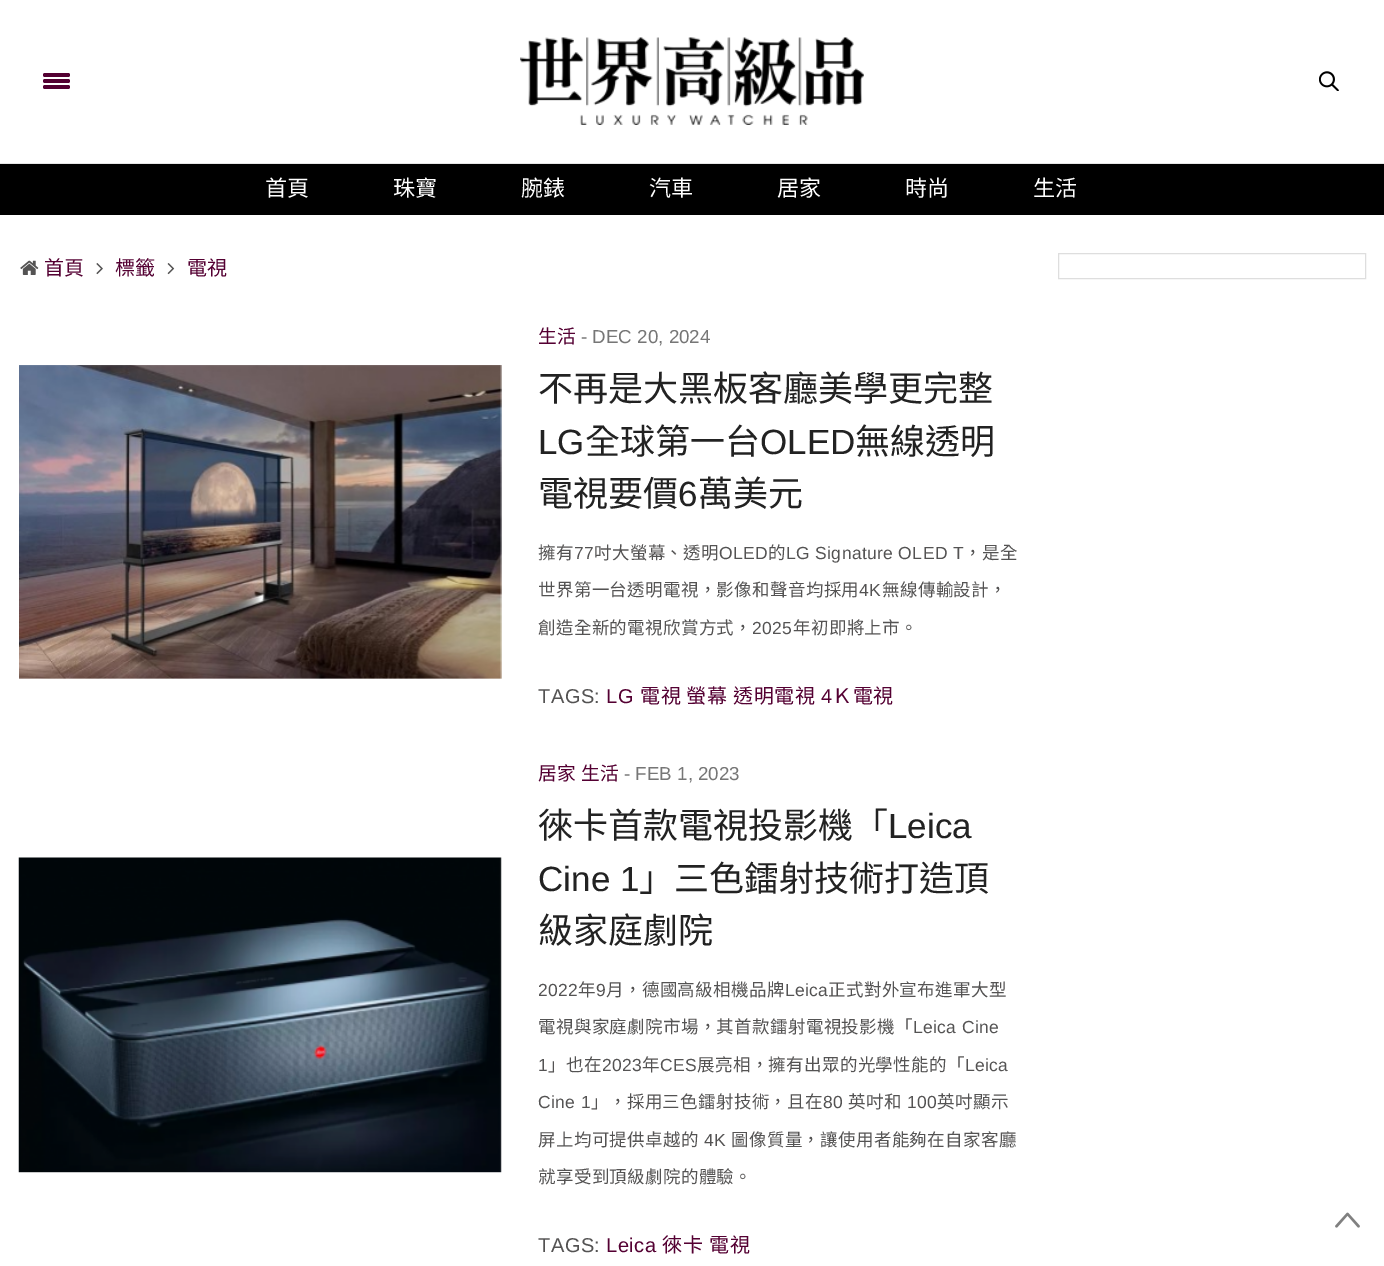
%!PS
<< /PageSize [1384 1266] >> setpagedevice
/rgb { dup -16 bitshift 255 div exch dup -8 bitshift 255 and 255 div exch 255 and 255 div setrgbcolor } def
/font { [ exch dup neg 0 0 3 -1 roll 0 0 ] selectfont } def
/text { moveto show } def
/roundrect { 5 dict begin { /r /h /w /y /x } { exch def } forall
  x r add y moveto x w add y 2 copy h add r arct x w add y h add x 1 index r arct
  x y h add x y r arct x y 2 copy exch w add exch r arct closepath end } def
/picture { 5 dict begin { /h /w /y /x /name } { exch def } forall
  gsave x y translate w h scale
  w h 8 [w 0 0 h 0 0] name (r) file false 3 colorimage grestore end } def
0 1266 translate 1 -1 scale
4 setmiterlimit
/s1 { /NotoSansCJKTC-Regular 22 font 16#FFFFFF rgb } def
/s2 { /NotoSansCJKTC-Regular 20 font 16#540032 rgb } def
/s3 { /NotoSansCJKTC-Regular 18.75 font 16#540032 rgb } def
/s4 { /LiberationSans-Regular 18.75 font 16#767676 rgb } def
/s5 { /NotoSansCJKTC-Regular 35 font 16#222222 rgb } def
/s6 { /LiberationSans-Regular 35 font 16#222222 rgb } def
16#FFFFFF rgb
0 0 1384 1266 rectfill
16#E6E6E6 rgb
0 163 1384 1 rectfill
16#540032 rgb
43 73 27 4 2 roundrect fill
43 79 27 4 2 roundrect fill
43 85 27 4 2 roundrect fill
(pic1.raw) 520 37 344 88 picture
(pic2.raw) 1319 71 20 20 picture
16#000000 rgb
0 164 1384 51 rectfill
s1
(首頁) 265 196 text
(珠寶) 393 196 text
(腕錶) 521 196 text
(汽車) 649 196 text
(居家) 777 196 text
(時尚) 905 196 text
(生活) 1033 196 text
(pic3.raw) 20 260 19 15 picture
s2
(首頁) 44 275 text
(pic4.raw) 96 263 7 12 picture
(標籤) 115 275 text
(pic5.raw) 167 263 8 12 picture
(電視) 187 275 text
(pic6.raw) 19 365 483 314 picture
s3
(生活) 538 343 text
s4
(- DEC 20, 2024) 581 343 text
s5
(不再是大黑板客廳美學更完整) 538 401 text
s6
(LG) 538 454 text
s5
(全球第一台) 585 454 text
s6
(OLED) 760 454 text
s5
(無線透明) 855 454 text
(電視要價) 538 506 text
s6
(6) 678 506 text
s5
(萬美元) 698 506 text
/NotoSansCJKTC-Regular 17.5 font
16#545353 rgb
538 559 moveto 0.35 0 (擁有) ashow
/LiberationSans-Regular 17.5 font
574 559 moveto 0.35 0 (77) ashow
/NotoSansCJKTC-Regular 17.5 font
594 559 moveto 0.35 0 (吋大螢幕、透明) ashow
/LiberationSans-Regular 17.5 font
719 559 moveto 0.35 0 (OLED) ashow
/NotoSansCJKTC-Regular 17.5 font
768 559 moveto 0.35 0 (的) ashow
/LiberationSans-Regular 17.5 font
786 559 moveto 0.35 0 (LG Signature OLED T) ashow
/NotoSansCJKTC-Regular 17.5 font
964 559 moveto 0.35 0 (，是全) ashow
538 596 moveto 0.35 0 (世界第一台透明電視，影像和聲音均採用) ashow
/LiberationSans-Regular 17.5 font
859 596 moveto 0.35 0 (4K) ashow
/NotoSansCJKTC-Regular 17.5 font
882 596 moveto 0.35 0 (無線傳輸設計，) ashow
538 634 moveto 0.35 0 (創造全新的電視欣賞方式，) ashow
/LiberationSans-Regular 17.5 font
752 634 moveto 0.35 0 (2025) ashow
/NotoSansCJKTC-Regular 17.5 font
793 634 moveto 0.35 0 (年初即將上市。) ashow
/LiberationSans-Regular 20 font
538 703 moveto 0.5 0 (TAGS:) ashow
16#540032 rgb
606 703 moveto 0.5 0 (LG) ashow
/NotoSansCJKTC-Regular 20 font
640 703 moveto 0.5 0 (電視) ashow
686 703 moveto 0.5 0 (螢幕) ashow
733 703 moveto 0.5 0 (透明電視) ashow
/LiberationSans-Regular 20 font
821 703 moveto 0.5 0 (4) ashow
/NotoSansCJKTC-Regular 20 font
832 703 moveto 0.5 0 (Ｋ電視) ashow
(pic7.raw) 18 857 484 316 picture
s3
(居家) 538 780 text
(生活) 581 780 text
s4
(- FEB 1, 2023) 624 780 text
s5
(徠卡首款電視投影機「) 538 838 text
s6
(Leica) 888 838 text
(Cine 1) 538 891 text
s5
(」三色鐳射技術打造頂) 639 891 text
(級家庭劇院) 538 943 text
/LiberationSans-Regular 17.5 font
16#545353 rgb
538 996 moveto 0.35 0 (2022) ashow
/NotoSansCJKTC-Regular 17.5 font
578 996 moveto 0.35 0 (年) ashow
/LiberationSans-Regular 17.5 font
596 996 moveto 0.35 0 (9) ashow
/NotoSansCJKTC-Regular 17.5 font
606 996 moveto 0.35 0 (月，德國高級相機品牌) ashow
/LiberationSans-Regular 17.5 font
785 996 moveto 0.35 0 (Leica) ashow
/NotoSansCJKTC-Regular 17.5 font
828 996 moveto 0.35 0 (正式對外宣布進軍大型) ashow
538 1033 moveto 0.35 0 (電視與家庭劇院市場，其首款鐳射電視投影機「) ashow
/LiberationSans-Regular 17.5 font
913 1033 moveto 0.35 0 (Leica Cine) ashow
538 1071 moveto 0.35 0 (1) ashow
/NotoSansCJKTC-Regular 17.5 font
548 1071 moveto 0.35 0 (」也在) ashow
/LiberationSans-Regular 17.5 font
602 1071 moveto 0.35 0 (2023) ashow
/NotoSansCJKTC-Regular 17.5 font
642 1071 moveto 0.35 0 (年) ashow
/LiberationSans-Regular 17.5 font
660 1071 moveto 0.35 0 (CES) ashow
/NotoSansCJKTC-Regular 17.5 font
697 1071 moveto 0.35 0 (展亮相，擁有出眾的光學性能的「) ashow
/LiberationSans-Regular 17.5 font
965 1071 moveto 0.35 0 (Leica) ashow
538 1108 moveto 0.35 0 (Cine 1) ashow
/NotoSansCJKTC-Regular 17.5 font
591 1108 moveto 0.35 0 (」，採用三色鐳射技術，且在) ashow
/LiberationSans-Regular 17.5 font
823 1108 moveto 0.35 0 (80) ashow
/NotoSansCJKTC-Regular 17.5 font
848 1108 moveto 0.35 0 (英吋和) ashow
/LiberationSans-Regular 17.5 font
907 1108 moveto 0.35 0 (100) ashow
/NotoSansCJKTC-Regular 17.5 font
937 1108 moveto 0.35 0 (英吋顯示) ashow
538 1146 moveto 0.35 0 (屏上均可提供卓越的) ashow
/LiberationSans-Regular 17.5 font
704 1146 moveto 0.35 0 (4K) ashow
/NotoSansCJKTC-Regular 17.5 font
731 1146 moveto 0.35 0 (圖像質量，讓使用者能夠在自家客廳) ashow
538 1183 moveto 0.35 0 (就享受到頂級劇院的體驗。) ashow
/LiberationSans-Regular 20 font
538 1252 moveto 0.5 0 (TAGS:) ashow
16#540032 rgb
606 1252 moveto 0.5 0 (Leica) ashow
/NotoSansCJKTC-Regular 20 font
662 1252 moveto 0.5 0 (徠卡) ashow
709 1252 moveto 0.5 0 (電視) ashow
16#DEDEDE rgb
1058.5 253.5 307 25 rectstroke
(pic8.raw) 1335 1212 25 16 picture
showpage
